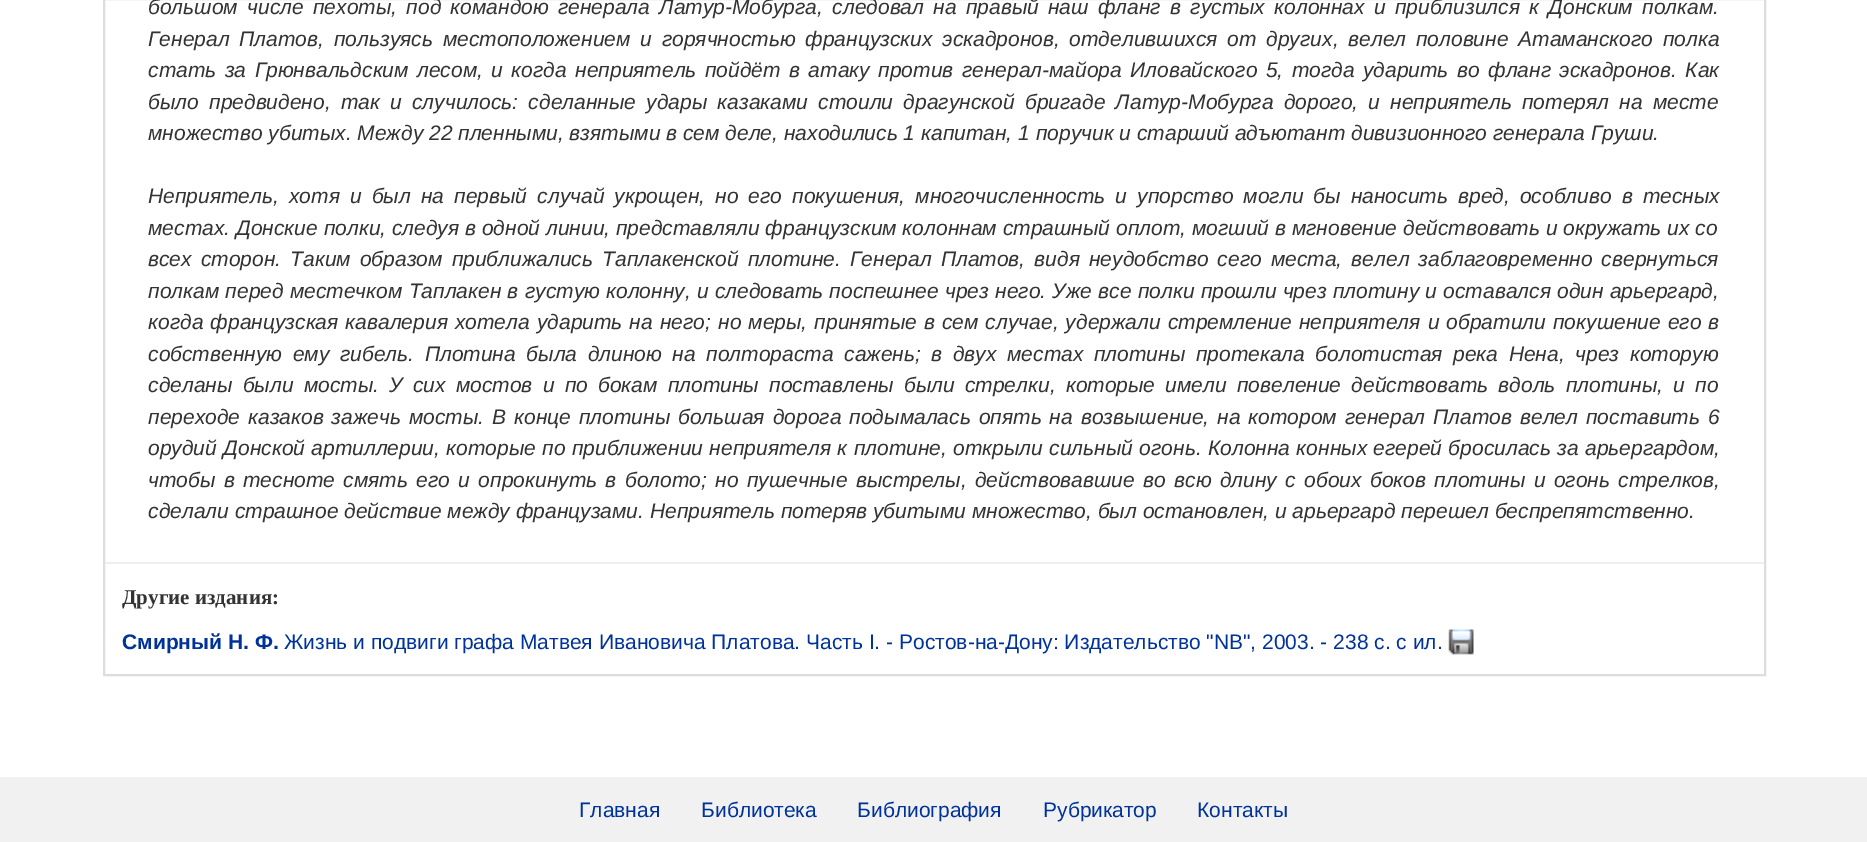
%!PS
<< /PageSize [1867 842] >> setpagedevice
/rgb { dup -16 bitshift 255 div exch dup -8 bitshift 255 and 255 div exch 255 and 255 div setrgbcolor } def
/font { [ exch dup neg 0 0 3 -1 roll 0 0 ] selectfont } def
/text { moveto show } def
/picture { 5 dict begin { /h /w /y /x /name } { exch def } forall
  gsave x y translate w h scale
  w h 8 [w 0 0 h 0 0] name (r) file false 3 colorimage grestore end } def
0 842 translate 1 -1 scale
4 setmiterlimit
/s1 { /LiberationSans-Italic 21 font 16#333333 rgb } def
/s2 { /LiberationSerif-Bold 21 font 16#333333 rgb } def
/s3 { /LiberationSans-Bold 21 font 16#003399 rgb } def
/s4 { /LiberationSans-Regular 21 font 16#003399 rgb } def
16#FFFFFF rgb
0 0 1867 842 rectfill
16#DDDDDD rgb
2 setlinewidth
104 -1 1661 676 rectstroke
/LiberationSans-Italic 21 font
16#333333 rgb
148 14 moveto 3.4 0 32 (большом числе пехоты, под командою генерала Латур-Мобурга, следовал на правый наш фланг в густых колоннах и приблизился к Донским полкам.) widthshow
148 46 moveto 3.9 0 32 (Генерал Платов, пользуясь местоположением и горячностью французских эскадронов, отделившихся от других, велел половине Атаманского полка) widthshow
148 77 moveto 2.6 0 32 (стать за Грюнвальдским лесом, и когда неприятель пойдёт в атаку против генерал-майора Иловайского 5, тогда ударить во фланг эскадронов. Как) widthshow
148 109 moveto 4.4 0 32 (было предвидено, так и случилось: сделанные удары казаками стоили драгунской бригаде Латур-Мобурга дорого, и неприятель потерял на месте) widthshow
(множество убитых. Между 22 пленными, взятыми в сем деле, находились 1 капитан, 1 поручик и старший адъютант дивизионного генерала Груши.) 148 140 text
148 203 moveto 4.25 0 32 (Неприятель, хотя и был на первый случай укрощен, но его покушения, многочисленность и упорство могли бы наносить вред, особливо в тесных) widthshow
(местах. Донские полки, следуя в одной линии, представляли французским колоннам страшный оплот, могший в мгновение действовать и окружать их со) 148 235 text
148 266 moveto 3.25 0 32 (всех сторон. Таким образом приближались Таплакенской плотине. Генерал Платов, видя неудобство сего места, велел заблаговременно свернуться) widthshow
148 298 moveto 0.4 0 32 (полкам перед местечком Таплакен в густую колонну, и следовать поспешнее чрез него. Уже все полки прошли чрез плотину и оставался один арьергард,) widthshow
148 329 moveto 1.25 0 32 (когда французская кавалерия хотела ударить на него; но меры, принятые в сем случае, удержали стремление неприятеля и обратили покушение его в) widthshow
148 361 moveto 4.75 0 32 (собственную ему гибель. Плотина была длиною на полтораста сажень; в двух местах плотины протекала болотистая река Нена, чрез которую) widthshow
148 392 moveto 4.4 0 32 (сделаны были мосты. У сих мостов и по бокам плотины поставлены были стрелки, которые имели повеление действовать вдоль плотины, и по) widthshow
148 424 moveto 2.1 0 32 (переходе казаков зажечь мосты. В конце плотины большая дорога подымалась опять на возвышение, на котором генерал Платов велел поставить 6) widthshow
148 455 moveto 0.5 0 32 (орудий Донской артиллерии, которые по приближении неприятеля к плотине, открыли сильный огонь. Колонна конных егерей бросилась за арьергардом,) widthshow
148 487 moveto 2.5 0 32 (чтобы в тесноте смять его и опрокинуть в болото; но пушечные выстрелы, действовавшие во всю длину с обоих боков плотины и огонь стрелков,) widthshow
(сделали страшное действие между французами. Неприятель потеряв убитыми множество, был остановлен, и арьергард перешел беспрепятственно.) 148 518 text
16#EEEEEE rgb
105 562 1659 2 rectfill
s2
(Другие издания:) 122 604 text
s3
(Смирный Н. Ф.) 122 649 text
s4
(Жизнь и подвиги графа Матвея Ивановича Платова. Часть I. - Ростов-на-Дону: Издательство "NB", 2003. - 238 с. с ил.) 284 649 text
(pic1.raw) 1448 629 26 26 picture
16#F1F1F1 rgb
0 777 1867 65 rectfill
s4
(Главная) 579 817 text
(Библиотека) 701 817 text
(Библиография) 857 817 text
(Рубрикатор) 1043 817 text
(Контакты) 1197 817 text
showpage
